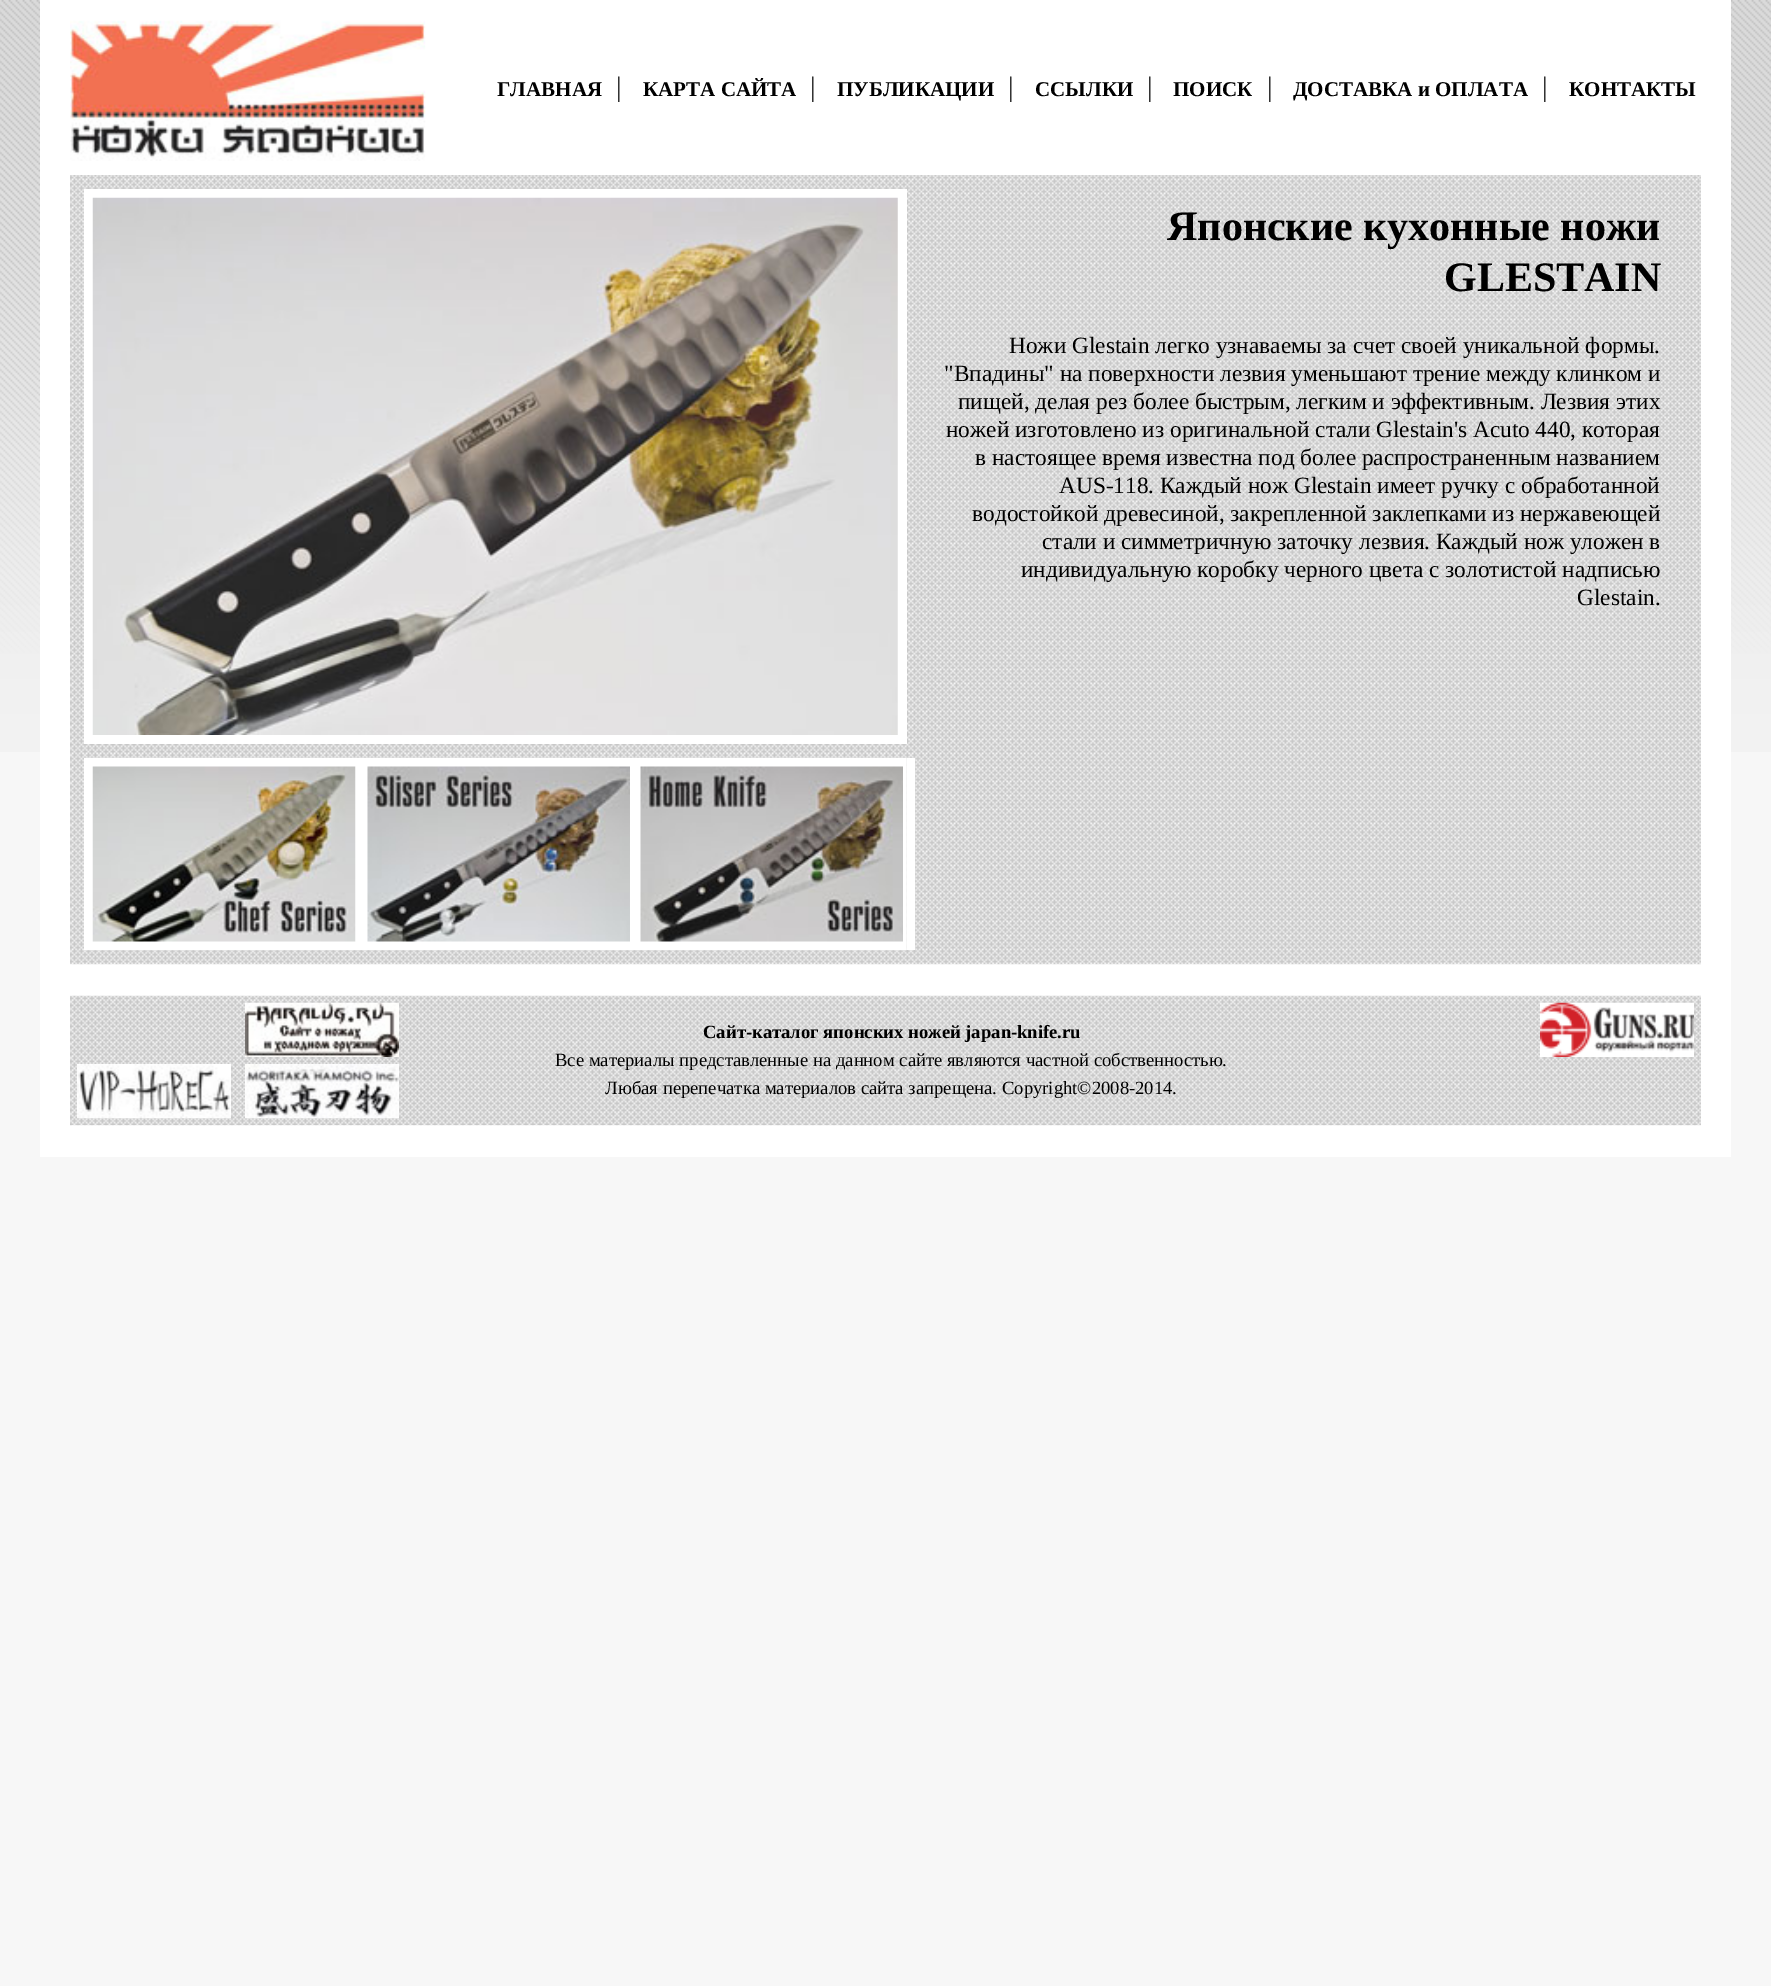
%!PS
<< /PageSize [1771 1986] >> setpagedevice
/rgb { dup -16 bitshift 255 div exch dup -8 bitshift 255 and 255 div exch 255 and 255 div setrgbcolor } def
/font { [ exch dup neg 0 0 3 -1 roll 0 0 ] selectfont } def
/text { moveto show } def
/picture { 5 dict begin { /h /w /y /x /name } { exch def } forall
  gsave x y translate w h scale
  w h 8 [w 0 0 h 0 0] name (r) file false 3 colorimage grestore end } def
0 1986 translate 1 -1 scale
4 setmiterlimit
/s1 { /LiberationSerif-Bold 21 font 16#000000 rgb } def
/s2 { /LiberationSerif-Regular 28 font 16#333333 rgb } def
/s3 { /LiberationSerif-Bold 42 font 16#000000 rgb } def
/s4 { /LiberationSerif-Regular 23.3 font 16#000000 rgb } def
/s5 { /LiberationSerif-Bold 18.65 font 16#000000 rgb } def
/s6 { /LiberationSerif-Regular 18.65 font 16#000000 rgb } def
16#F7F7F7 rgb
0 0 1771 1986 rectfill
(pic1.raw) 0 0 1771 752 picture
16#FFFFFF rgb
40 0 1691 1157 rectfill
(pic2.raw) 70 20 356 141 picture
s1
(ГЛАВНАЯ) 497 96 text
s2
(|) 616 96 text
s1
(КАРТА САЙТА) 643 96 text
s2
(|) 810 96 text
s1
(ПУБЛИКАЦИИ) 837 96 text
s2
(|) 1008 96 text
s1
(ССЫЛКИ) 1035 96 text
s2
(|) 1147 96 text
s1
(ПОИСК) 1173 96 text
s2
(|) 1267 96 text
s1
(ДОСТАВКА и ОПЛАТА) 1293 96 text
s2
(|) 1542 96 text
s1
(КОНТАКТЫ) 1569 96 text
(pic3.raw) 70 175 1631 790 picture
16#FFFFFF rgb
84 189 823 555 rectfill
(pic4.raw) 92 197 806 538 picture
s3
(Японские кухонные ножи) 1167 240 text
(GLESTAIN) 1444 291 text
s4
(Ножи Glestain легко узнаваемы за счет своей уникальной формы.) 1009 353 text
("Впадины" на поверхности лезвия уменьшают трение между клинком и) 944 381 text
(пищей, делая рез более быстрым, легким и эффективным. Лезвия этих) 958 409 text
(ножей изготовлено из оригинальной стали Glestain's Acuto 440, которая) 946 437 text
(в настоящее время известна под более распространенным названием) 975 465 text
(AUS-118. Каждый нож Glestain имеет ручку с обработанной) 1059 493 text
(водостойкой древесиной, закрепленной заклепками из нержавеющей) 972 521 text
(стали и симметричную заточку лезвия. Каждый нож уложен в) 1042 549 text
(индивидуальную коробку черного цвета с золотистой надписью) 1021 577 text
(Glestain.) 1577 605 text
16#FFFFFF rgb
906 758 9 192 rectfill
(pic5.raw) 84 757 823 194 picture
(pic6.raw) 70 995 1631 131 picture
(pic7.raw) 77 1064 154 55 picture
(pic8.raw) 245 1064 154 55 picture
(pic9.raw) 245 1002 154 55 picture
s5
(Сайт-каталог японских ножей japan-knife.ru) 703 1038 text
s6
(Все материалы представленные на данном сайте являются частной собственностью.) 555 1066 text
(Любая перепечатка материалов сайта запрещена. Copyright©2008-2014.) 605 1094 text
(pic10.raw) 1540 1002 154 55 picture
showpage
